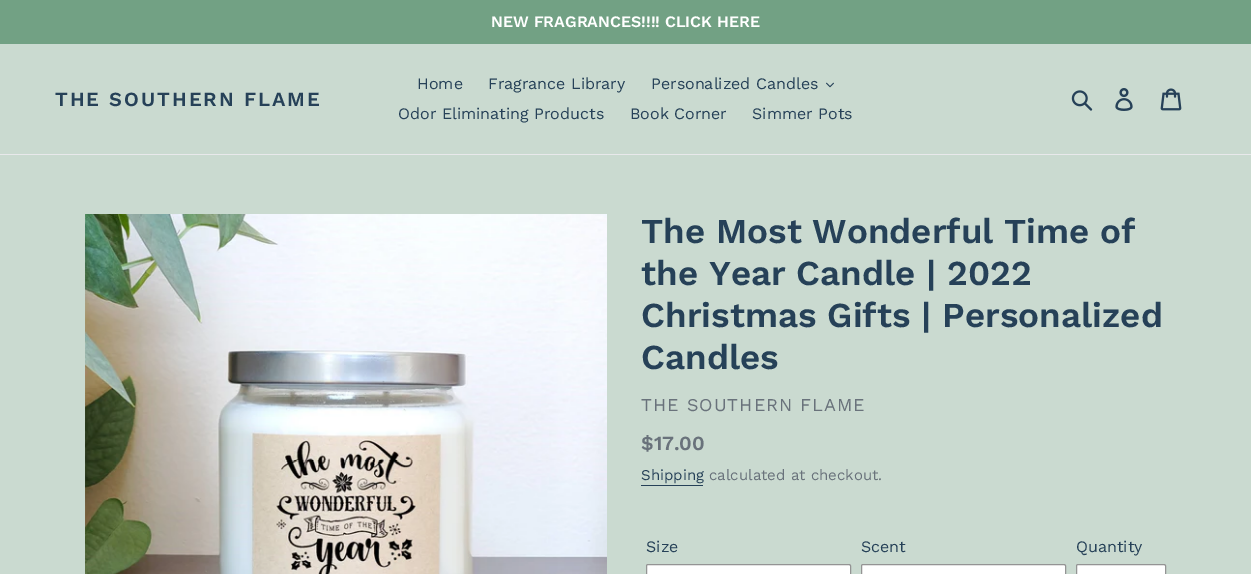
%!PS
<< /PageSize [1251 574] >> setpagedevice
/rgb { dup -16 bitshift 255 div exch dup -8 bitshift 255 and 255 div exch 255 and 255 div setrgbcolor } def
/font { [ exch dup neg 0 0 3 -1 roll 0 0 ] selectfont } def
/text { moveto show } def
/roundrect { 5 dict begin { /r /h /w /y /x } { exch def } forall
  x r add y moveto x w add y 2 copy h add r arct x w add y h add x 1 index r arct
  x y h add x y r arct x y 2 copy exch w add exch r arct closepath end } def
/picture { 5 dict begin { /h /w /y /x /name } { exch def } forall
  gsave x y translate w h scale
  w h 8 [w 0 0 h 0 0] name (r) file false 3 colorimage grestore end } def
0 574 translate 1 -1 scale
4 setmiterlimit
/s1 { /WorkSans-SemiBold 16 font 16#FFFFFF rgb } def
/s2 { /WorkSans-Regular 16 font 16#264158 rgb } def
/s3 { /WorkSans-SemiBold 35 font 16#264158 rgb } def
/s4 { /WorkSans-SemiBold 20 font 16#69727B rgb } def
/s5 { /WorkSans-Regular 15 font 16#264158 rgb } def
/s6 { /WorkSans-Regular 15 font 16#69727B rgb } def
16#CADAD0 rgb
0 0 1251 574 rectfill
16#72A184 rgb
0 0 1251 44 rectfill
s1
(NEW FRAGRANCES!!!! CLICK HERE) 491 27 text
16#E8E9EB rgb
0 154 1251 1 rectfill
/WorkSans-SemiBold 20 font
16#264158 rgb
55 106 moveto 2 0 (THE SOUTHERN FLAME) ashow
s2
(Home) 417 89 text
(Fragrance Library) 488 89 text
(Personalized Candles) 651 89 text
(pic1.raw) 826 82 8 6 picture
(Odor Eliminating Products) 398 119 text
(Book Corner) 630 119 text
(Simmer Pots) 752 119 text
(pic2.raw) 1071 90 22 21 picture
(pic3.raw) 1115 88 18 23 picture
(pic4.raw) 1160 88 22 23 picture
(pic5.raw) 85 214 522 360 picture
s3
(The Most Wonderful Time of) 641 243 text
(the Year Candle | 2022) 641 285 text
(Christmas Gifts | Personalized) 641 327 text
(Candles) 641 369 text
/WorkSans-Regular 18 font
16#69727B rgb
641 411 moveto 1 0 (THE SOUTHERN FLAME) ashow
s4
($17.00) 641 450 text
s5
(Shipping) 641 480 text
641 485 62 1 rectfill
s6
(calculated at checkout.) 709 480 text
s2
(Size) 646 552 text
16#FFFFFF rgb
646.5 564.5 204 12 1.5 roundrect gsave fill grestore
16#949494 rgb
stroke
s2
(Scent) 861 552 text
16#FFFFFF rgb
861.5 564.5 204 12 1.5 roundrect gsave fill grestore
16#949494 rgb
stroke
s2
(Quantity) 1076 552 text
16#FFFFFF rgb
1076.5 564.5 89 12 1.5 roundrect gsave fill grestore
16#949494 rgb
stroke
showpage
